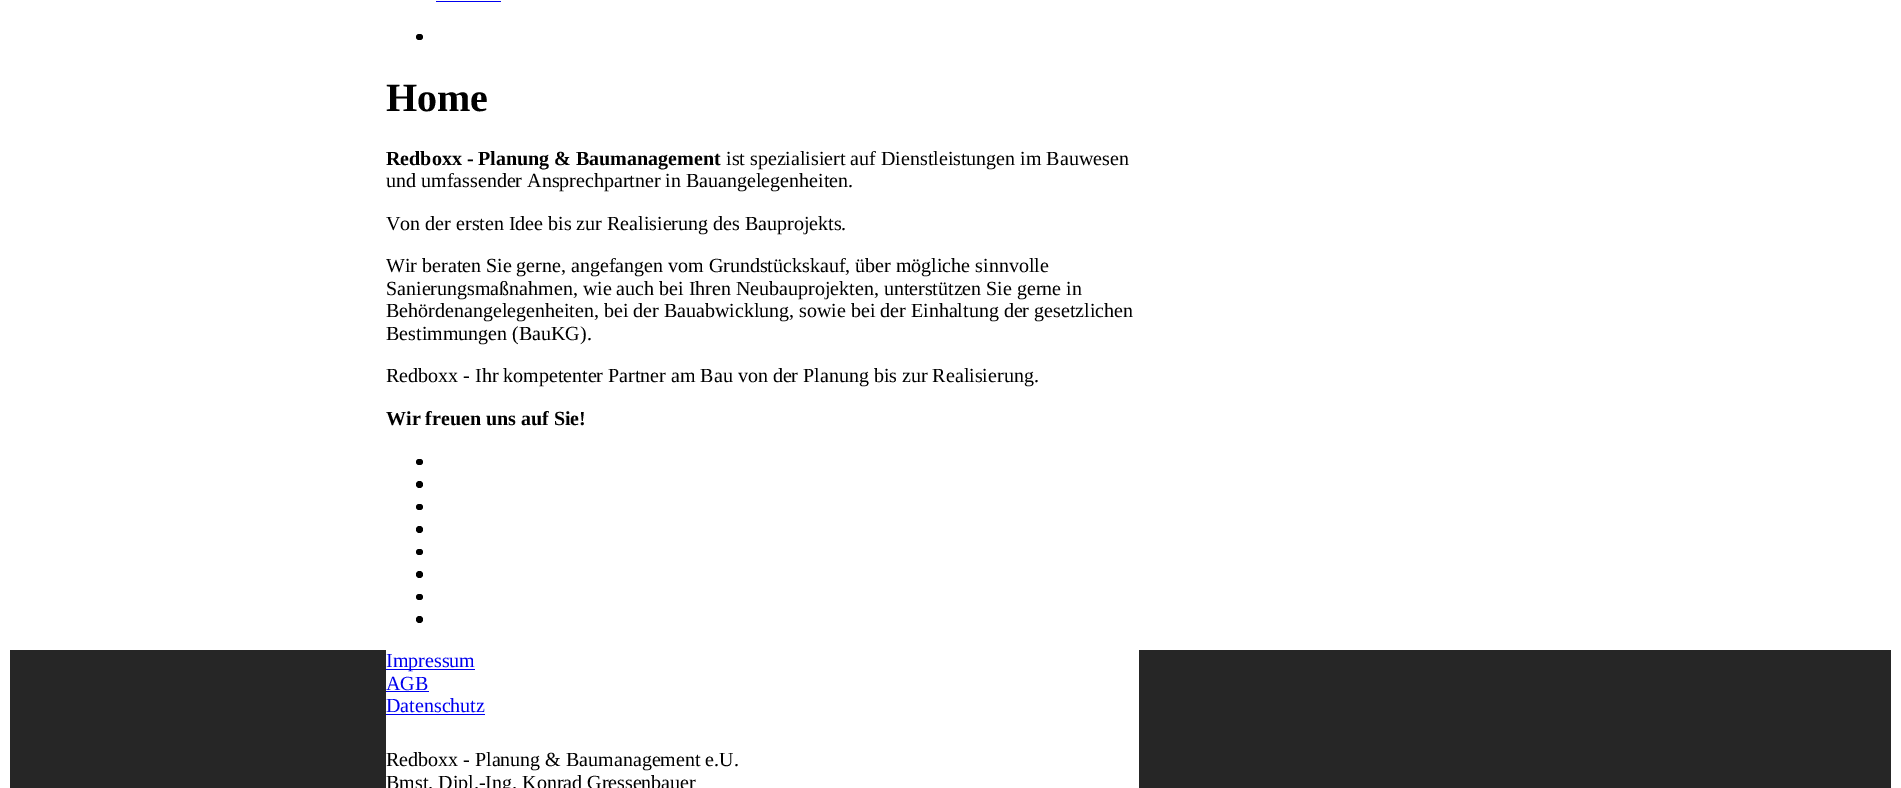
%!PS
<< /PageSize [1901 788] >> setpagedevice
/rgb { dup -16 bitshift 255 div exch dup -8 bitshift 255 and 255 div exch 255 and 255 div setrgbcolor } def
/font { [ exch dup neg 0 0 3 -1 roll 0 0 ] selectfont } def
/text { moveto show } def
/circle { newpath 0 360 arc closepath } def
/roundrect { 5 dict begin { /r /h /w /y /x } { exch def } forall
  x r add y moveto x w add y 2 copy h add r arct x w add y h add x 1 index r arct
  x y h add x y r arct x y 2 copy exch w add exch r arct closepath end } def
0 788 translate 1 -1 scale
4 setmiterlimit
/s1 { /LiberationSerif-Bold 40 font 16#000000 rgb } def
/s2 { /LiberationSerif-Bold 20 font 16#000000 rgb } def
/s3 { /LiberationSerif-Regular 20 font 16#000000 rgb } def
/s4 { /LiberationSerif-Regular 20 font 16#0000EE rgb } def
16#FFFFFF rgb
0 0 1901 788 rectfill
16#0000EE rgb
436 1 65 1 rectfill
16#000000 rgb
416 34 7 6 3 roundrect fill
s1
(Home) 386 111 text
s2
(Redboxx - Planung & Baumanagement) 386 165 text
s3
(ist spezialisiert auf Dienstleistungen im Bauwesen) 726 165 text
(und umfassender Ansprechpartner in Bauangelegenheiten.) 386 187 text
(Von der ersten Idee bis zur Realisierung des Bauprojekts.) 386 230 text
(Wir beraten Sie gerne, angefangen vom Grundstückskauf, über mögliche sinnvolle) 386 272 text
(Sanierungsmaßnahmen, wie auch bei Ihren Neubauprojekten, unterstützen Sie gerne in) 386 295 text
(Behördenangelegenheiten, bei der Bauabwicklung, sowie bei der Einhaltung der gesetzlichen) 386 317 text
(Bestimmungen \(BauKG\).) 386 340 text
(Redboxx - Ihr kompetenter Partner am Bau von der Planung bis zur Realisierung.) 386 382 text
s2
(Wir freuen uns auf Sie!) 386 425 text
416 459 7 6 3 roundrect fill
419.5 484.5 3.5 circle fill
416 504 7 6 3 roundrect fill
419.5 529.5 3.5 circle fill
416 549 7 6 3 roundrect fill
419.5 574.5 3.5 circle fill
416 594 7 6 3 roundrect fill
419.5 619.5 3.5 circle fill
16#262626 rgb
10 650 376 138 rectfill
16#0000EE rgb
386 669 89 1 rectfill
s4
(Impressum) 386 667 text
(AGB) 386 690 text
386 691 43 1 rectfill
(Datenschutz) 386 712 text
386 714 99 1 rectfill
s3
(Redboxx - Planung & Baumanagement e.U.) 386 766 text
(Bmst. Dipl.-Ing. Konrad Gressenbauer) 386 789 text
16#262626 rgb
1139 650 752 138 rectfill
showpage
